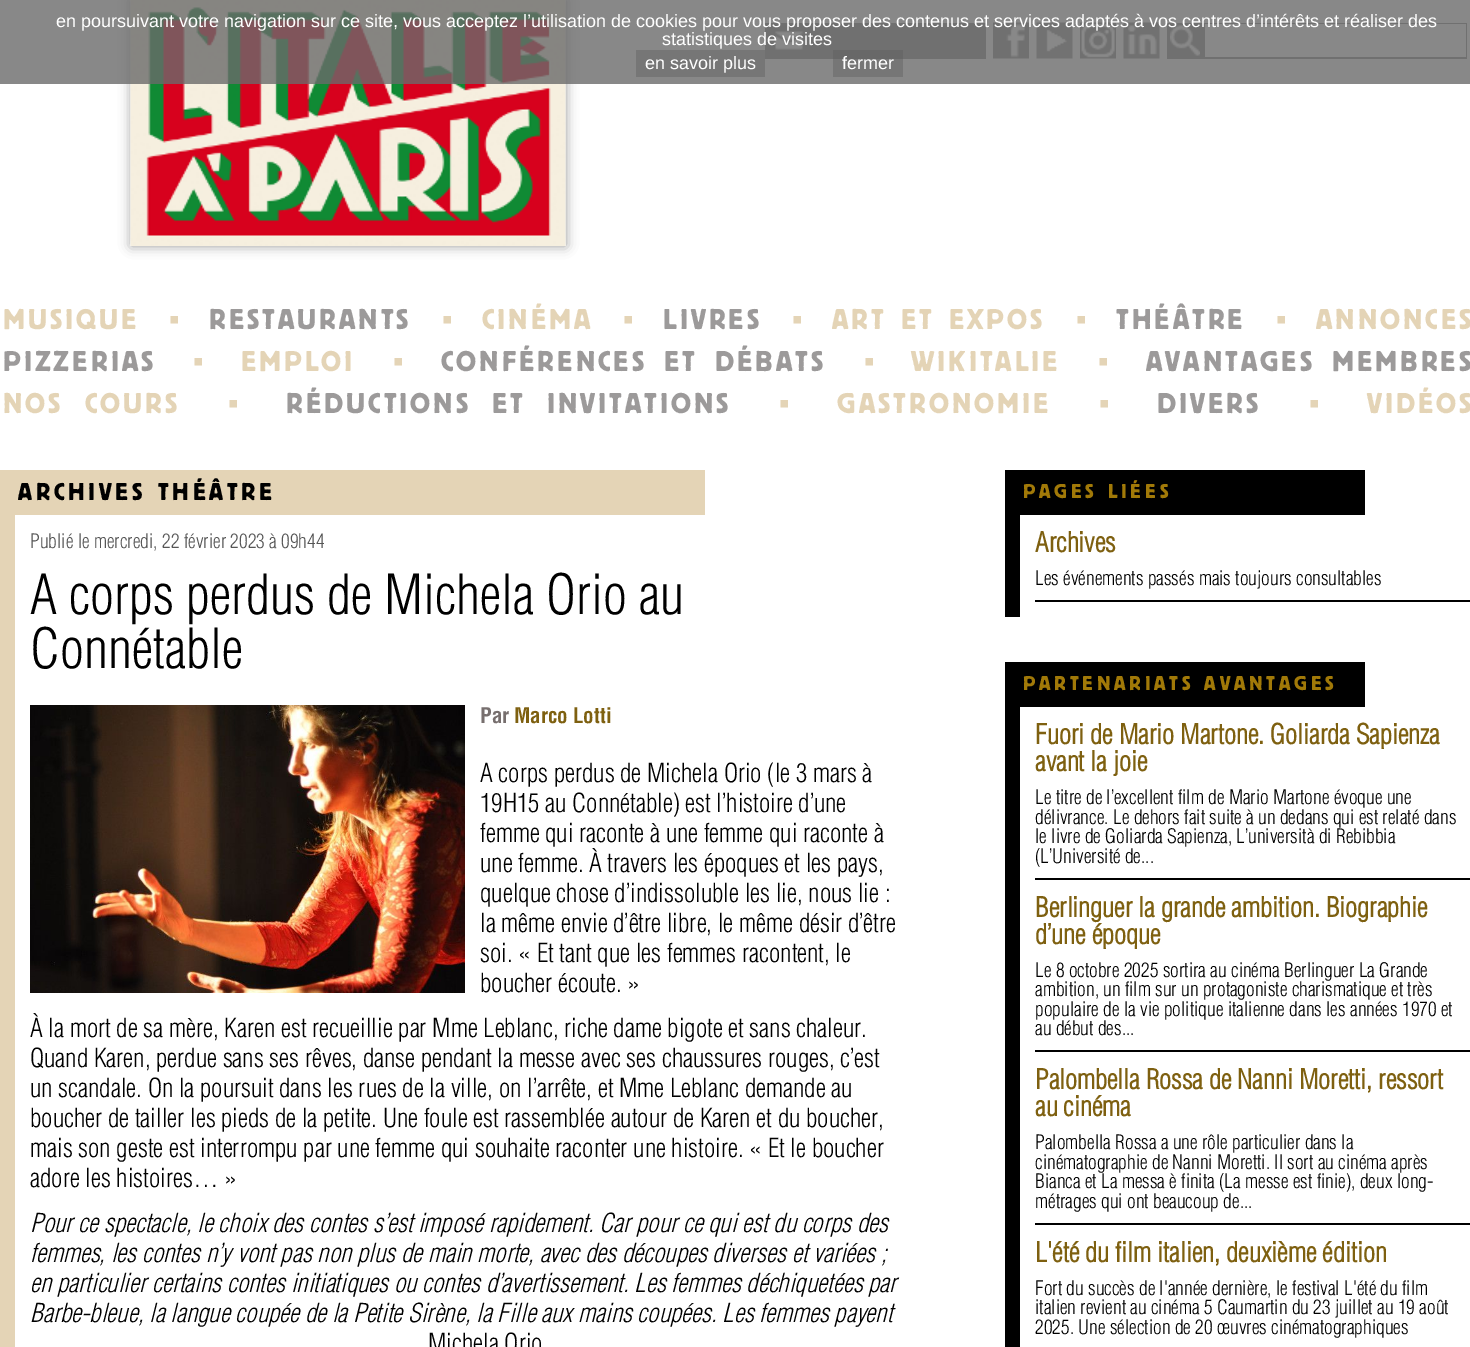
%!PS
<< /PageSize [1470 1347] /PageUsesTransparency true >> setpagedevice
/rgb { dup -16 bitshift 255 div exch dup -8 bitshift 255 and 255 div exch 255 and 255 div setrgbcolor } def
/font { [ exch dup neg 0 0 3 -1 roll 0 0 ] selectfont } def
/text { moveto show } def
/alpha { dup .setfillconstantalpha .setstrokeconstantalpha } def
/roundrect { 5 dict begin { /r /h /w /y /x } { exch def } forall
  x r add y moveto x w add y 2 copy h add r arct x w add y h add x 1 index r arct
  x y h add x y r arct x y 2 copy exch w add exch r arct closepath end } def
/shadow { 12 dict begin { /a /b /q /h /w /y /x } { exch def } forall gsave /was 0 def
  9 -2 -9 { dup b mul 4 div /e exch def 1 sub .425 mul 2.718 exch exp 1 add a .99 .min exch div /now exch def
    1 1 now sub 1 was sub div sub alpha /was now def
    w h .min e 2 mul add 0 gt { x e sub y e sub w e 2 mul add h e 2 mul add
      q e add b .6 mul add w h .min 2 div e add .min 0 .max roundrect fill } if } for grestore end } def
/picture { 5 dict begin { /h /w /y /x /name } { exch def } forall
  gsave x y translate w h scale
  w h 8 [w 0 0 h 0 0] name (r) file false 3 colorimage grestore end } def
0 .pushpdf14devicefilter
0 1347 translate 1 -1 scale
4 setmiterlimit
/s1 { /LiberationSans-Regular 18 font 16#FFFFFF rgb } def
/s2 { /LiberationSerif-Regular 30 font 16#E4D4B6 rgb } def
/s3 { /Helvetica-Light 19.5 font 16#555555 rgb } def
/s4 { /Helvetica-Light 54 font 16#000000 rgb } def
/s5 { /Helvetica-Bold 21 font 16#776F6E rgb } def
/s6 { /Helvetica-Bold 21 font 16#7E6010 rgb } def
/s7 { /Helvetica-Light 25.5 font 16#000000 rgb } def
/s8 { /Helvetica-LightItalic 25.5 font 16#000000 rgb } def
/s9 { /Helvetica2-Bold 27 font 16#7E6010 rgb } def
/s10 { /Helvetica-Light 19.5 font 16#000000 rgb } def
16#FFFFFF rgb
0 0 1470 1347 rectfill
16#999999 rgb
131 0 435 246 0 6 1 shadow
(pic1.raw) 130 0 436 246 picture
16#898989 rgb
765 23 221 36 rectfill
(pic2.raw) 775 31 28 19 picture
(pic3.raw) 993 22 36 37 picture
(pic4.raw) 1036 22 37 37 picture
(pic5.raw) 1080 22 36 37 picture
(pic6.raw) 1123 22 37 37 picture
1167 23 300 36 rectfill
(pic7.raw) 1170 25 30 31 picture
16#FFFFFF rgb
1205 24 261 33 rectfill
0.8 alpha
16#6A6A6A rgb
0 0 1470 84 rectfill
1 alpha
s1
(en poursuivant votre navigation sur ce site, vous acceptez l’utilisation de cookies pour vous proposer des contenus et services adaptés à vos centres d’intérêts et réaliser des) 56 27 text
(statistiques de visites) 662 45 text
16#767676 rgb
636 50 129 27 rectfill
s1
(en savoir plus) 645 69 text
0.4 alpha
16#5C5C5C rgb
833 50 70 27 rectfill
1 alpha
s1
(fermer) 842 69 text
/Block-Regular 30 font
16#E4D4B6 rgb
3 329 moveto 3 0 (MUSIQUE) ashow
s2
(▪) 169 329 text
/Block-Regular 30 font
16#9C9A9A rgb
209 329 moveto 3 0 (RESTAURANTS) ashow
s2
(▪) 442 329 text
/Block-Regular 30 font
482 329 moveto 3 0 (CINÉMA) ashow
s2
(▪) 623 329 text
/Block-Regular 30 font
16#9C9A9A rgb
663 329 moveto 3 0 (LIVRES) ashow
s2
(▪) 792 329 text
/Block-Regular 30 font
832 329 moveto 2 0 32 3 0 (ART ET EXPOS) awidthshow
s2
(▪) 1076 329 text
/Block-Regular 30 font
16#9C9A9A rgb
1116 329 moveto 3 0 (THÉÂTRE) ashow
s2
(▪) 1276 329 text
/Block-Regular 30 font
1316 329 moveto 3 0 (ANNONCES) ashow
16#9C9A9A rgb
3 371 moveto 3 0 (PIZZERIAS) ashow
s2
(▪) 193 371 text
/Block-Regular 30 font
241 371 moveto 3 0 (EMPLOI) ashow
s2
(▪) 393 371 text
/Block-Regular 30 font
16#9C9A9A rgb
441 371 moveto 5 0 32 3 0 (CONFÉRENCES ET DÉBATS) awidthshow
s2
(▪) 864 371 text
/Block-Regular 30 font
911 371 moveto 3 0 (WIKITALIE) ashow
s2
(▪) 1098 371 text
/Block-Regular 30 font
16#9C9A9A rgb
1146 371 moveto 5 0 32 3 0 (AVANTAGES MEMBRES) awidthshow
16#E4D4B6 rgb
3 413 moveto 9 0 32 3 0 (NOS COURS) awidthshow
s2
(▪) 228 413 text
/Block-Regular 30 font
16#9C9A9A rgb
286 413 moveto 9 0 32 3 0 (RÉDUCTIONS ET INVITATIONS) awidthshow
s2
(▪) 779 413 text
/Block-Regular 30 font
837 413 moveto 3 0 (GASTRONOMIE) ashow
s2
(▪) 1099 413 text
/Block-Regular 30 font
16#9C9A9A rgb
1157 413 moveto 3 0 (DIVERS) ashow
s2
(▪) 1309 413 text
/Block-Regular 30 font
1367 413 moveto 3 0 (VIDÉOS) ashow
0 470 705 45 rectfill
/Block-Regular 25.5 font
16#000000 rgb
18 500 moveto 3.75 0 (ARCHIVES THÉÂTRE) ashow
16#E4D4B6 rgb
0 515 15 832 rectfill
s3
(Publié le mercredi, 22 février 2023 à 09h44) 30 548 text
s4
(A corps perdus de Michela Orio au) 30 614 text
(Connétable) 30 668 text
(pic8.raw) 30 705 435 288 picture
s5
(Par) 480 723 text
s6
(Marco Lotti) 514 723 text
s7
(A corps perdus de Michela Orio \(le 3 mars à) 480 782 text
(19H15 au Connétable\) est l’histoire d’une) 480 812 text
(femme qui raconte à une femme qui raconte à) 480 842 text
(une femme. À travers les époques et les pays,) 480 872 text
(quelque chose d’indissoluble les lie, nous lie :) 480 902 text
(la même envie d’être libre, le même désir d’être) 480 932 text
(soi. « Et tant que les femmes racontent, le) 480 962 text
(boucher écoute. ») 480 992 text
(À la mort de sa mère, Karen est recueillie par Mme Leblanc, riche dame bigote et sans chaleur.) 30 1037 text
(Quand Karen, perdue sans ses rêves, danse pendant la messe avec ses chaussures rouges, c’est) 30 1067 text
(un scandale. On la poursuit dans les rues de la ville, on l’arrête, et Mme Leblanc demande au) 30 1097 text
(boucher de tailler les pieds de la petite. Une foule est rassemblée autour de Karen et du boucher,) 30 1127 text
(mais son geste est interrompu par une femme qui souhaite raconter une histoire. « Et le boucher) 30 1157 text
(adore les histoires… ») 30 1187 text
s8
(Pour ce spectacle, le choix des contes s’est imposé rapidement. Car pour ce qui est du corps des) 30 1232 text
(femmes, les contes n’y vont pas non plus de main morte, avec des découpes diverses et variées ;) 30 1262 text
(en particulier certains contes initiatiques ou contes d’avertissement. Les femmes déchiquetées par) 30 1292 text
(Barbe-bleue, la langue coupée de la Petite Sirène, la Fille aux mains coupées. Les femmes payent) 30 1322 text
s7
(Michela Orio) 428 1352 text
1005 470 360 45 rectfill
/Block-Regular 21 font
16#A17908 rgb
1023 498 moveto 3.75 0 (PAGES LIÉES) ashow
16#000000 rgb
1005 515 15 102 rectfill
1035 600 435 2 rectfill
s9
(Archives) 1035 552 text
s10
(Les événements passés mais toujours consultables) 1035 585 text
1005 662 360 45 rectfill
/Block-Regular 21 font
16#A17908 rgb
1023 690 moveto 3.75 0 (PARTENARIATS AVANTAGES) ashow
16#000000 rgb
1005 707 15 640 rectfill
1035 878 435 2 rectfill
s9
(Fuori de Mario Martone. Goliarda Sapienza) 1035 744 text
(avant la joie) 1035 771 text
s10
(Le titre de l’excellent film de Mario Martone évoque une) 1035 804 text
(délivrance. Le dehors fait suite à un dedans qui est relaté dans) 1035 824 text
(le livre de Goliarda Sapienza, L’università di Rebibbia) 1035 843 text
(\(L’Université de...) 1035 863 text
1035 1050 435 2 rectfill
s9
(Berlinguer la grande ambition. Biographie) 1035 917 text
(d’une époque) 1035 944 text
s10
(Le 8 octobre 2025 sortira au cinéma Berlinguer La Grande) 1035 977 text
(ambition, un film sur un protagoniste charismatique et très) 1035 996 text
(populaire de la vie politique italienne dans les années 1970 et) 1035 1016 text
(au début des...) 1035 1035 text
1035 1223 435 2 rectfill
s9
(Palombella Rossa de Nanni Moretti, ressort) 1035 1089 text
(au cinéma) 1035 1116 text
s10
(Palombella Rossa a une rôle particulier dans la) 1035 1149 text
(cinématographie de Nanni Moretti. Il sort au cinéma après) 1035 1169 text
(Bianca et La messa è finita \(La messe est finie\), deux long-) 1035 1188 text
(métrages qui ont beaucoup de...) 1035 1208 text
s9
(L'été du film italien, deuxième édition) 1035 1262 text
s10
(Fort du succès de l'année dernière, le festival L'été du film) 1035 1295 text
(italien revient au cinéma 5 Caumartin du 23 juillet au 19 août) 1035 1314 text
(2025. Une sélection de 20 œuvres cinématographiques) 1035 1334 text
.poppdf14devicefilter showpage
